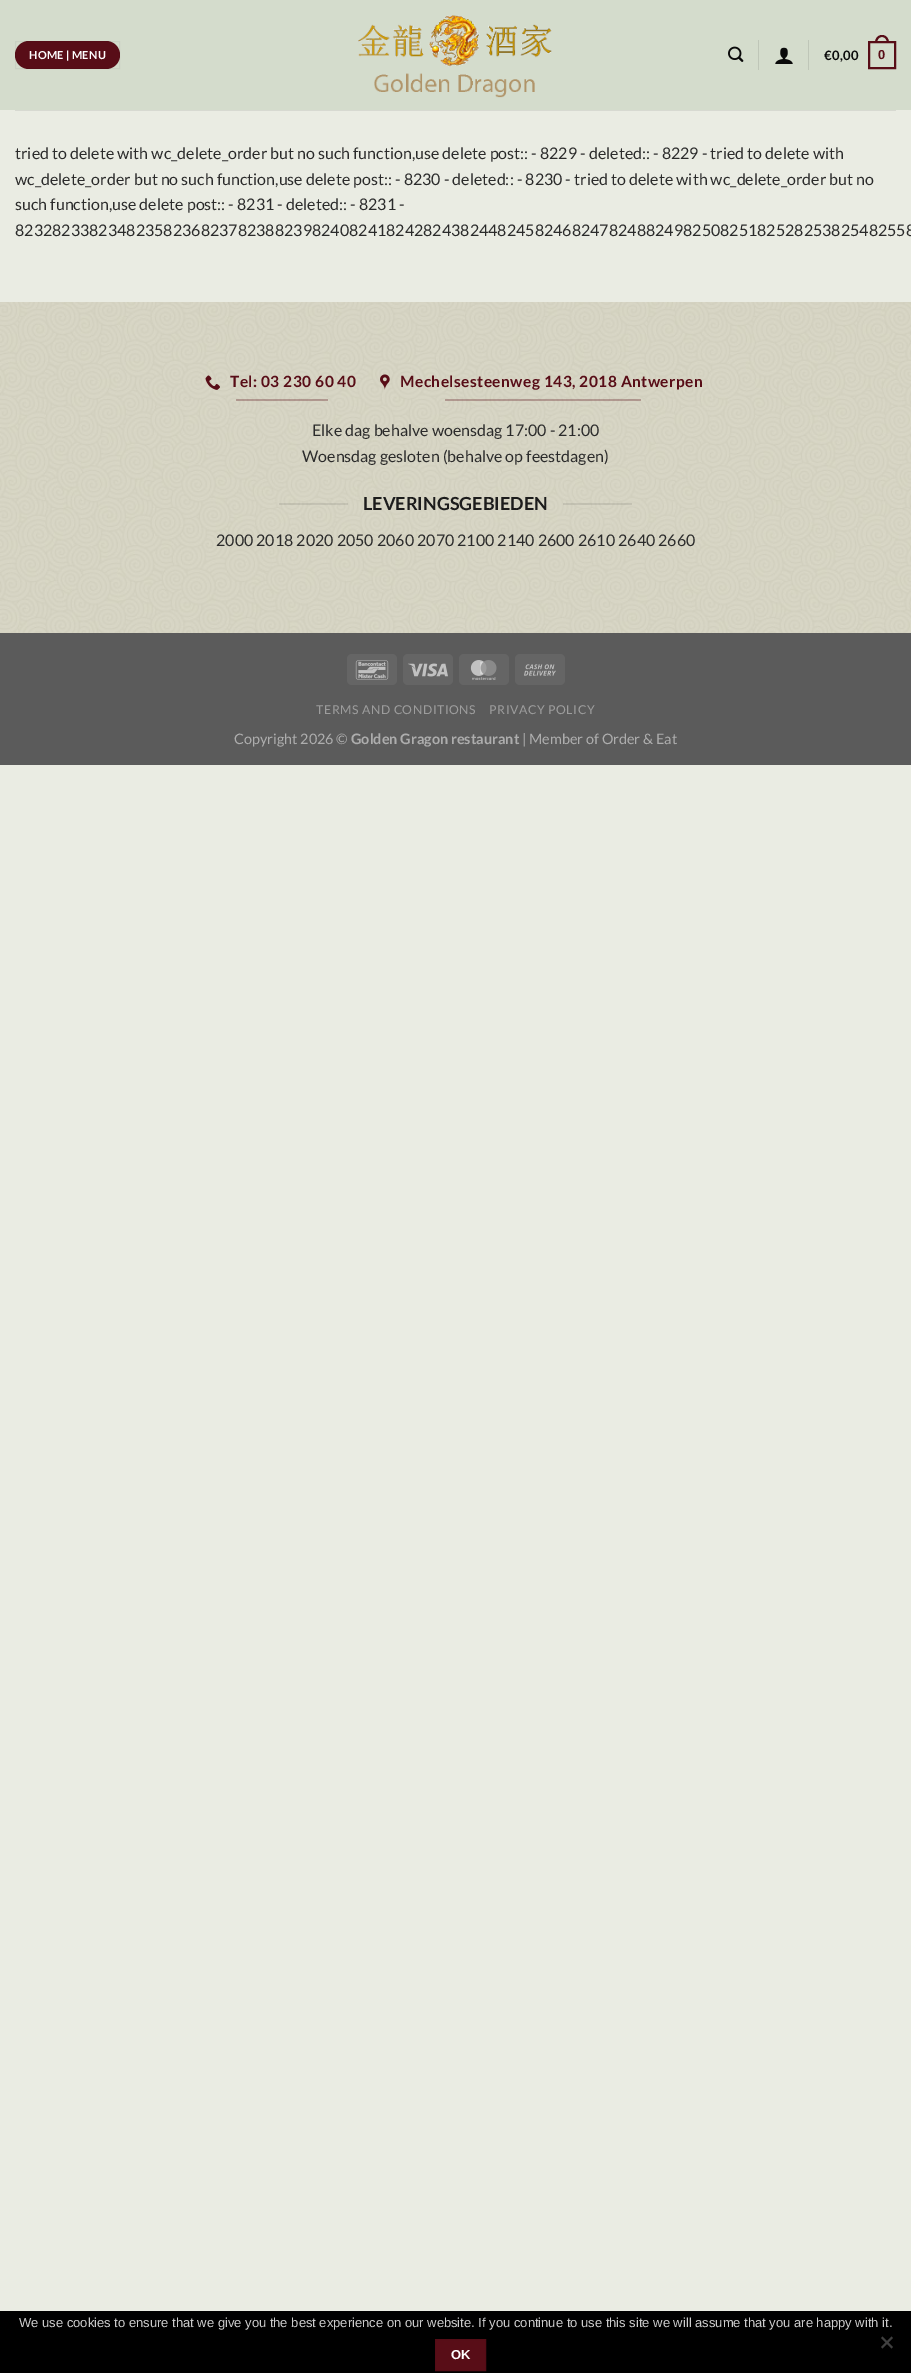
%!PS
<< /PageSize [911 2373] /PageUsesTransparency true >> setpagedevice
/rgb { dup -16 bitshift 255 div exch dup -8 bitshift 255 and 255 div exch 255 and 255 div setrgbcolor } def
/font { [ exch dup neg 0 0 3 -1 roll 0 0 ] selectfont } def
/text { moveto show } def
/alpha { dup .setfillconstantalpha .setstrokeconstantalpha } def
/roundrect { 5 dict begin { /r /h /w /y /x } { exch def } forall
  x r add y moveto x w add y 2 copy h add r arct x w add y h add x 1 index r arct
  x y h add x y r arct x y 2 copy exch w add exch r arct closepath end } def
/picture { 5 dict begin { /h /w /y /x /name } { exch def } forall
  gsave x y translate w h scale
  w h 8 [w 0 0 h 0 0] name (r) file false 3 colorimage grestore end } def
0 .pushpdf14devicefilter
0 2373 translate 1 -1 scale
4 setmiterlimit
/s1 { /Lato-Regular 16 font 16#2B2B2B rgb } def
/s2 { /Lato-Bold 18 font 16#1C1C1C rgb } def
/s3 { /Lato-Regular 14.4 font 16#ADADAD rgb } def
/s4 { /Lato-Bold 14.4 font 16#ADADAD rgb } def
/s5 { /LiberationSans-Regular 13 font 16#CCCCCC rgb } def
/s6 { /LiberationSans-Bold 13 font 16#FFFFFF rgb } def
16#EAECE3 rgb
0 0 911 2373 rectfill
16#D4DCCC rgb
0 0 911 110 rectfill
16#580D17 rgb
15 41 105 28 14 roundrect fill
0.05 alpha
16#000000 rgb
15.5 41.5 104 27 rectstroke
/Lato-Bold 11 font
1 alpha
16#FFFFFF rgb
29 59 moveto 0.25 0 (HOME | MENU) ashow
(pic1.raw) 358 15 194 83 picture
(pic2.raw) 728 46 16 16 picture
16#BFC6B8 rgb
758 40 1 30 rectfill
(pic3.raw) 775 47 18 17 picture
808 40 1 30 rectfill
/Lato-Bold 13 font
16#0A0A0A rgb
824 60 moveto 0.25 0 (€0,00) ashow
16#580D17 rgb
2 setlinewidth
869 42 26 26 rectstroke
882 35 moveto 886.5 35 889 39 889 43 curveto 875 43 lineto 875 39 877.5 35 882 35 curveto closepath 882 37 moveto 885.5 37 887 40 887 43 curveto 877 43 lineto 877 40 878.5 37 882 37 curveto closepath eofill
/LiberationSans-Bold 13 font
878 59 moveto 0.25 0 (0) ashow
16#D7D9D1 rgb
15 110 881 1 rectfill
s1
(tried to delete with wc_delete_order but no such function,use delete post:: - 8229 - deleted:: - 8229 - tried to delete with) 15 159 text
(wc_delete_order but no such function,use delete post:: - 8230 - deleted:: - 8230 - tried to delete with wc_delete_order but no) 15 185 text
(such function,use delete post:: - 8231 - deleted:: - 8231 -) 15 210 text
(8232823382348235823682378238823982408241824282438244824582468247824882498250825182528253825482558) 15 236 text
(pic4.raw) 0 302 911 331 picture
(pic5.raw) 205 375 15 15 picture
/Lato-Bold 15.5 font
16#580D17 rgb
230 387 moveto 0.45 0 (Tel: 03 230 60 40) ashow
0.3 alpha
236 399 92 2 rectfill
1 alpha
(pic6.raw) 380 374 10 16 picture
400 387 moveto 0.45 0 (Mechelsesteenweg 143, 2018 Antwerpen) ashow
0.3 alpha
445 399 196 2 rectfill
1 alpha
s1
(Elke dag behalve woensdag 17:00 - 21:00) 312 436 text
(Woensdag gesloten \(behalve op feestdagen\)) 302 462 text
0.1 alpha
16#1C1C1C rgb
279 503 69 2 rectfill
1 alpha
s2
(LEVERINGSGEBIEDEN) 363 510 text
0.1 alpha
563 503 69 2 rectfill
1 alpha
s1
(2000 2018 2020 2050 2060 2070 2100 2140 2600 2610 2640 2660) 216 546 text
16#5B5B5B rgb
0 633 911 132 rectfill
16#656565 rgb
347 654 50 31 5 roundrect fill
(pic7.raw) 355 660 34 20 picture
403 654 50 31 5 roundrect fill
(pic8.raw) 408 663 40 14 picture
459 654 50 31 5 roundrect fill
(pic9.raw) 470 660 27 20 picture
515 654 50 31 5 roundrect fill
(pic10.raw) 524 664 32 12 picture
/Lato-Regular 12.25 font
16#9D9D9D rgb
316 714 moveto 0.6 0 (TERMS AND CONDITIONS) ashow
489 714 moveto 0.6 0 (PRIVACY POLICY) ashow
s3
(Copyright 2026 ©) 234 744 text
s4
(Golden Gragon restaurant) 351 744 text
s3
(| Member of Order & Eat) 522 744 text
16#000000 rgb
0 2311 911 62 rectfill
s5
(We use cookies to ensure that we give you the best experience on our website. If you continue to use this site we will assume that you are happy with it.) 19 2327 text
16#404040 rgb
891.5 2336.5 moveto 893 2338 lineto 882.5 2348.5 lineto 881 2347 lineto closepath fill
881 2338 moveto 882.5 2336.5 lineto 893 2347 lineto 891.5 2348.5 lineto closepath fill
16#580D17 rgb
435.5 2339.5 moveto 485.5 2339.5 lineto 485.5 2370.5 lineto 435.5 2370.5 lineto closepath gsave fill grestore
16#540C16 rgb
1 setlinewidth
stroke
s6
(OK) 451 2359 text
.poppdf14devicefilter showpage
